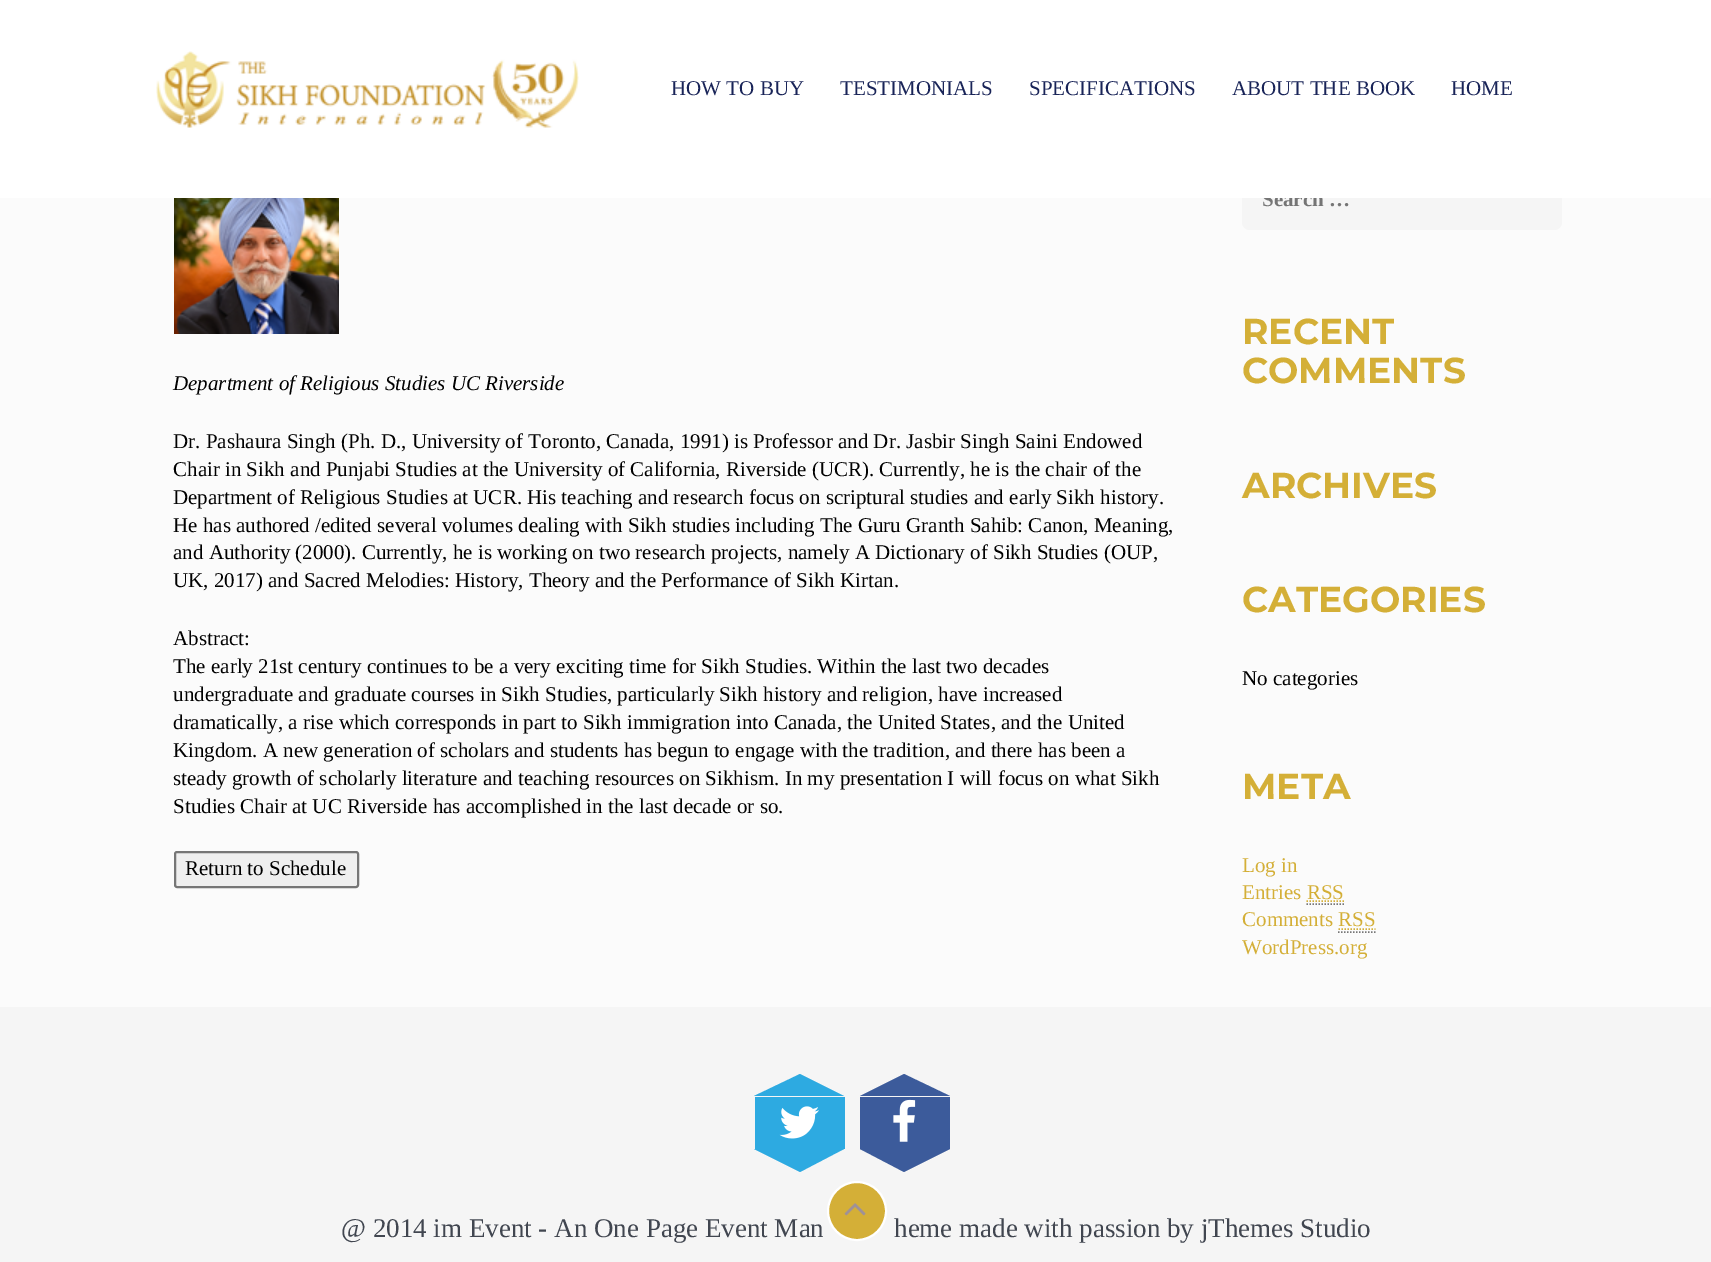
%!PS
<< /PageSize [1711 1262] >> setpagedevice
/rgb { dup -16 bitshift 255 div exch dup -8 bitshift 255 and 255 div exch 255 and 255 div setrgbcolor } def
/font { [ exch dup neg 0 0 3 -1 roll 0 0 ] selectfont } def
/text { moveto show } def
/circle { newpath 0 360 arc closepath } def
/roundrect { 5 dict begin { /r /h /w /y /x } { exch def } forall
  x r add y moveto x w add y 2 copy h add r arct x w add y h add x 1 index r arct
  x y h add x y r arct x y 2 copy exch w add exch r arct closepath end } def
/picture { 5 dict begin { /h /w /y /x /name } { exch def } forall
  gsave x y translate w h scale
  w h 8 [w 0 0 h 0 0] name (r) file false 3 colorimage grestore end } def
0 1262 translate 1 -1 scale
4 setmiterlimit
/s1 { /LiberationSerif-Bold 21 font 16#757575 rgb } def
/s2 { /LiberationSerif-Regular 21 font 16#192458 rgb } def
/s3 { /LiberationSerif-Italic 21 font 16#000000 rgb } def
/s4 { /LiberationSerif-Regular 21 font 16#000000 rgb } def
/s5 { /Montserrat-Bold 36 font 16#D4AF37 rgb } def
/s6 { /LiberationSerif-Regular 21 font 16#D4AF37 rgb } def
/s7 { /LiberationSerif-Regular 27 font 16#414650 rgb } def
16#FBFBFB rgb
0 0 1711 1262 rectfill
16#F5F5F5 rgb
1242 170 320 60 8 roundrect fill
s1
(Search …) 1262 206 text
16#FFFFFF rgb
0 0 1711 198 rectfill
(pic1.raw) 156 51 423 77 picture
s2
(HOW TO BUY) 671 95 text
(TESTIMONIALS) 840 95 text
(SPECIFICATIONS) 1029 95 text
(ABOUT THE BOOK) 1232 95 text
(HOME) 1451 95 text
(pic2.raw) 174 198 165 136 picture
s3
(Department of Religious Studies UC Riverside) 173 390 text
s4
(Dr. Pashaura Singh \(Ph. D., University of Toronto, Canada, 1991\) is Professor and Dr. Jasbir Singh Saini Endowed) 173 448 text
(Chair in Sikh and Punjabi Studies at the University of California, Riverside \(UCR\). Currently, he is the chair of the) 173 476 text
(Department of Religious Studies at UCR. His teaching and research focus on scriptural studies and early Sikh history.) 173 504 text
(He has authored /edited several volumes dealing with Sikh studies including The Guru Granth Sahib: Canon, Meaning,) 173 532 text
(and Authority \(2000\). Currently, he is working on two research projects, namely A Dictionary of Sikh Studies \(OUP,) 173 559 text
(UK, 2017\) and Sacred Melodies: History, Theory and the Performance of Sikh Kirtan.) 173 587 text
(Abstract:) 173 645 text
(The early 21st century continues to be a very exciting time for Sikh Studies. Within the last two decades) 173 673 text
(undergraduate and graduate courses in Sikh Studies, particularly Sikh history and religion, have increased) 173 701 text
(dramatically, a rise which corresponds in part to Sikh immigration into Canada, the United States, and the United) 173 729 text
(Kingdom. A new generation of scholars and students has begun to engage with the tradition, and there has been a) 173 757 text
(steady growth of scholarly literature and teaching resources on Sikhism. In my presentation I will focus on what Sikh) 173 785 text
(Studies Chair at UC Riverside has accomplished in the last decade or so.) 173 813 text
16#EFEFEF rgb
175 852 183 35 2 roundrect gsave fill grestore
16#767676 rgb
2 setlinewidth
stroke
s4
(Return to Schedule) 185 875 text
s5
(RECENT) 1242 344 text
(COMMENTS) 1242 383 text
(ARCHIVES) 1242 498 text
(CATEGORIES) 1242 612 text
s4
(No categories) 1242 685 text
s5
(META) 1242 799 text
s6
(Log in) 1242 872 text
(Entries RSS) 1242 899 text
16#777777 rgb
1.5 setlinewidth
[1.5 1.5] 0 setdash
1306.5 904 moveto 1344 904 lineto stroke
16#D4AF37 rgb
1306.5 901 moveto 1344 901 lineto stroke
(Comments RSS) 1242 926 text
16#777777 rgb
1338 932 moveto 1375.5 932 lineto stroke
16#D4AF37 rgb
1338.5 929 moveto 1375.5 929 lineto stroke
(WordPress.org) 1242 954 text
16#F5F5F5 rgb
0 1007 1711 255 rectfill
16#D4AF37 rgb
857 1211 29 circle gsave fill grestore
16#FFFFFF rgb
2 setlinewidth
[] 0 setdash
stroke
(pic3.raw) 844 1203 22 13 picture
16#2DAAE1 rgb
755 1097 90 52 rectfill
844 1096 moveto 754 1096 lineto 800 1074 lineto closepath fill
(pic4.raw) 779 1106 40 33 picture
754 1149 moveto 844 1149 lineto 800 1172 lineto closepath fill
16#3C5B9B rgb
860 1097 90 52 rectfill
950 1096 moveto 860 1096 lineto 904 1074 lineto closepath fill
(pic5.raw) 893 1099 23 43 picture
860 1149 moveto 950 1149 lineto 904 1172 lineto closepath fill
s7
(@ 2014 im Event - An One Page Event Man) 341 1237 text
(heme made with passion by jThemes Studio) 894 1237 text
showpage
